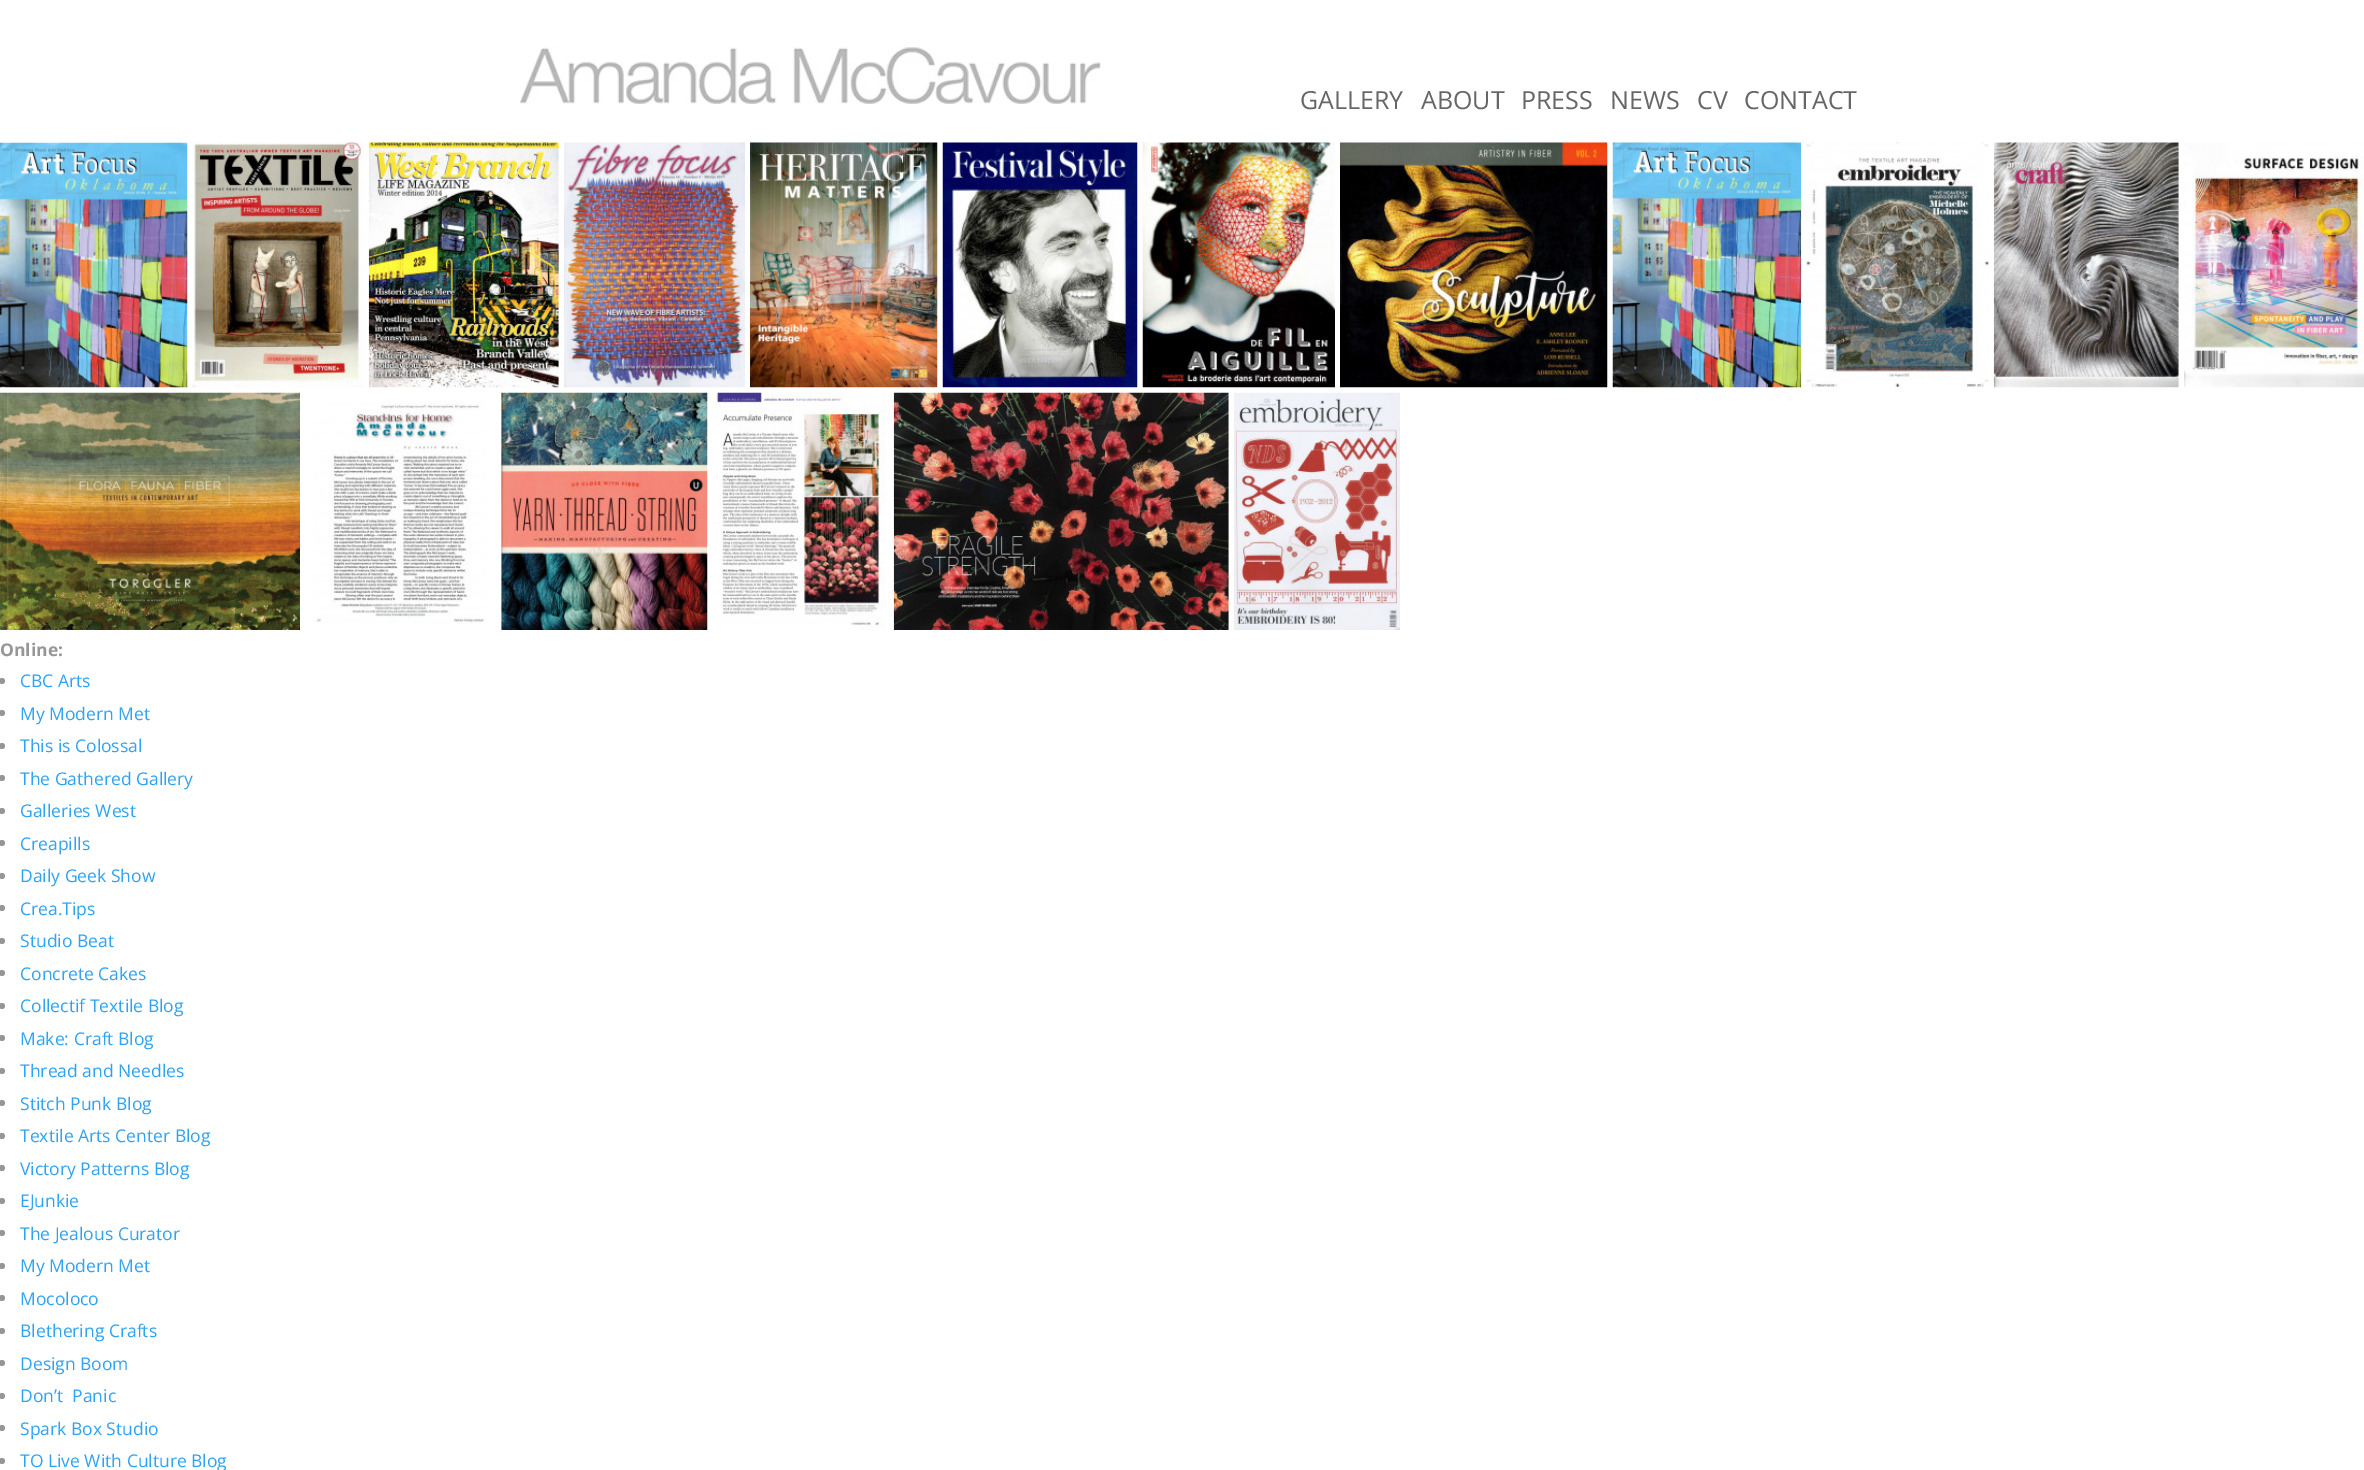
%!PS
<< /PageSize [2364 1470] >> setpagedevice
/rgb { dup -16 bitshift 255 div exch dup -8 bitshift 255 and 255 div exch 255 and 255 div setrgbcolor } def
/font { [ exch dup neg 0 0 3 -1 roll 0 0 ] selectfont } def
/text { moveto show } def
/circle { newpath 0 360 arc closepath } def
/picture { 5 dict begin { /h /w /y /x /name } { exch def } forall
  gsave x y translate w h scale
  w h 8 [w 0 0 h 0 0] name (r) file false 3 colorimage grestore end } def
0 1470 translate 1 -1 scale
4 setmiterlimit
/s1 { /OpenSans-Regular 25 font 16#666666 rgb } def
/s2 { /OpenSans-Bold 17.5 font 16#969696 rgb } def
/s3 { /OpenSans-Regular 17.5 font 16#2EA3F2 rgb } def
16#FFFFFF rgb
0 0 2364 1470 rectfill
(pic1.raw) 520 47 581 57 picture
s1
(GALLERY) 1300 109 text
(ABOUT) 1421 109 text
(PRESS) 1521 109 text
(NEWS) 1610 109 text
(CV) 1697 109 text
(CONTACT) 1744 109 text
(pic2.raw) 0 142 188 246 picture
(pic3.raw) 192 142 172 246 picture
(pic4.raw) 368 142 191 246 picture
(pic5.raw) 564 142 181 246 picture
(pic6.raw) 750 142 188 246 picture
(pic7.raw) 942 142 196 246 picture
(pic8.raw) 1142 142 193 246 picture
(pic9.raw) 1340 142 268 246 picture
(pic10.raw) 1612 142 190 246 picture
(pic11.raw) 1806 142 183 246 picture
(pic12.raw) 1993 142 186 246 picture
(pic13.raw) 2184 143 180 245 picture
(pic14.raw) 0 392 300 238 picture
(pic15.raw) 314 401 172 223 picture
(pic16.raw) 501 392 207 238 picture
(pic17.raw) 713 392 173 238 picture
(pic18.raw) 893 392 336 238 picture
(pic19.raw) 1234 392 166 238 picture
s2
(Online:) 0 656 text
2 681 3 circle fill
s3
(CBC Arts) 20 687 text
16#969696 rgb
2 713 3 circle fill
s3
(My Modern Met) 20 720 text
16#969696 rgb
2 746 3 circle fill
s3
(This is Colossal) 20 752 text
16#969696 rgb
2 778 3 circle fill
s3
(The Gathered Gallery) 20 785 text
16#969696 rgb
2 811 3 circle fill
s3
(Galleries West) 20 817 text
16#969696 rgb
2 843 3 circle fill
s3
(Creapills) 20 850 text
16#969696 rgb
2 876 3 circle fill
s3
(Daily Geek Show) 20 882 text
16#969696 rgb
2 908 3 circle fill
s3
(Crea.Tips) 20 915 text
16#969696 rgb
2 941 3 circle fill
s3
(Studio Beat) 20 947 text
16#969696 rgb
2 973 3 circle fill
s3
(Concrete Cakes) 20 980 text
16#969696 rgb
2 1006 3 circle fill
s3
(Collectif Textile Blog) 20 1012 text
16#969696 rgb
2 1038 3 circle fill
s3
(Make: Craft Blog) 20 1045 text
16#969696 rgb
2 1071 3 circle fill
s3
(Thread and Needles) 20 1077 text
16#969696 rgb
2 1103 3 circle fill
s3
(Stitch Punk Blog) 20 1110 text
16#969696 rgb
2 1136 3 circle fill
s3
(Textile Arts Center Blog) 20 1142 text
16#969696 rgb
2 1168 3 circle fill
s3
(Victory Patterns Blog) 20 1175 text
16#969696 rgb
2 1201 3 circle fill
s3
(EJunkie) 20 1207 text
16#969696 rgb
2 1233 3 circle fill
s3
(The Jealous Curator) 20 1240 text
16#969696 rgb
2 1266 3 circle fill
s3
(My Modern Met) 20 1272 text
16#969696 rgb
2 1298 3 circle fill
s3
(Mocoloco) 20 1305 text
16#969696 rgb
2 1331 3 circle fill
s3
(Blethering Crafts) 20 1337 text
16#969696 rgb
2 1363 3 circle fill
s3
(Design Boom) 20 1370 text
16#969696 rgb
2 1396 3 circle fill
s3
(Don’t  Panic) 20 1402 text
16#969696 rgb
2 1428 3 circle fill
s3
(Spark Box Studio) 20 1435 text
16#969696 rgb
2 1461 3 circle fill
s3
(TO Live With Culture Blog) 20 1467 text
showpage
